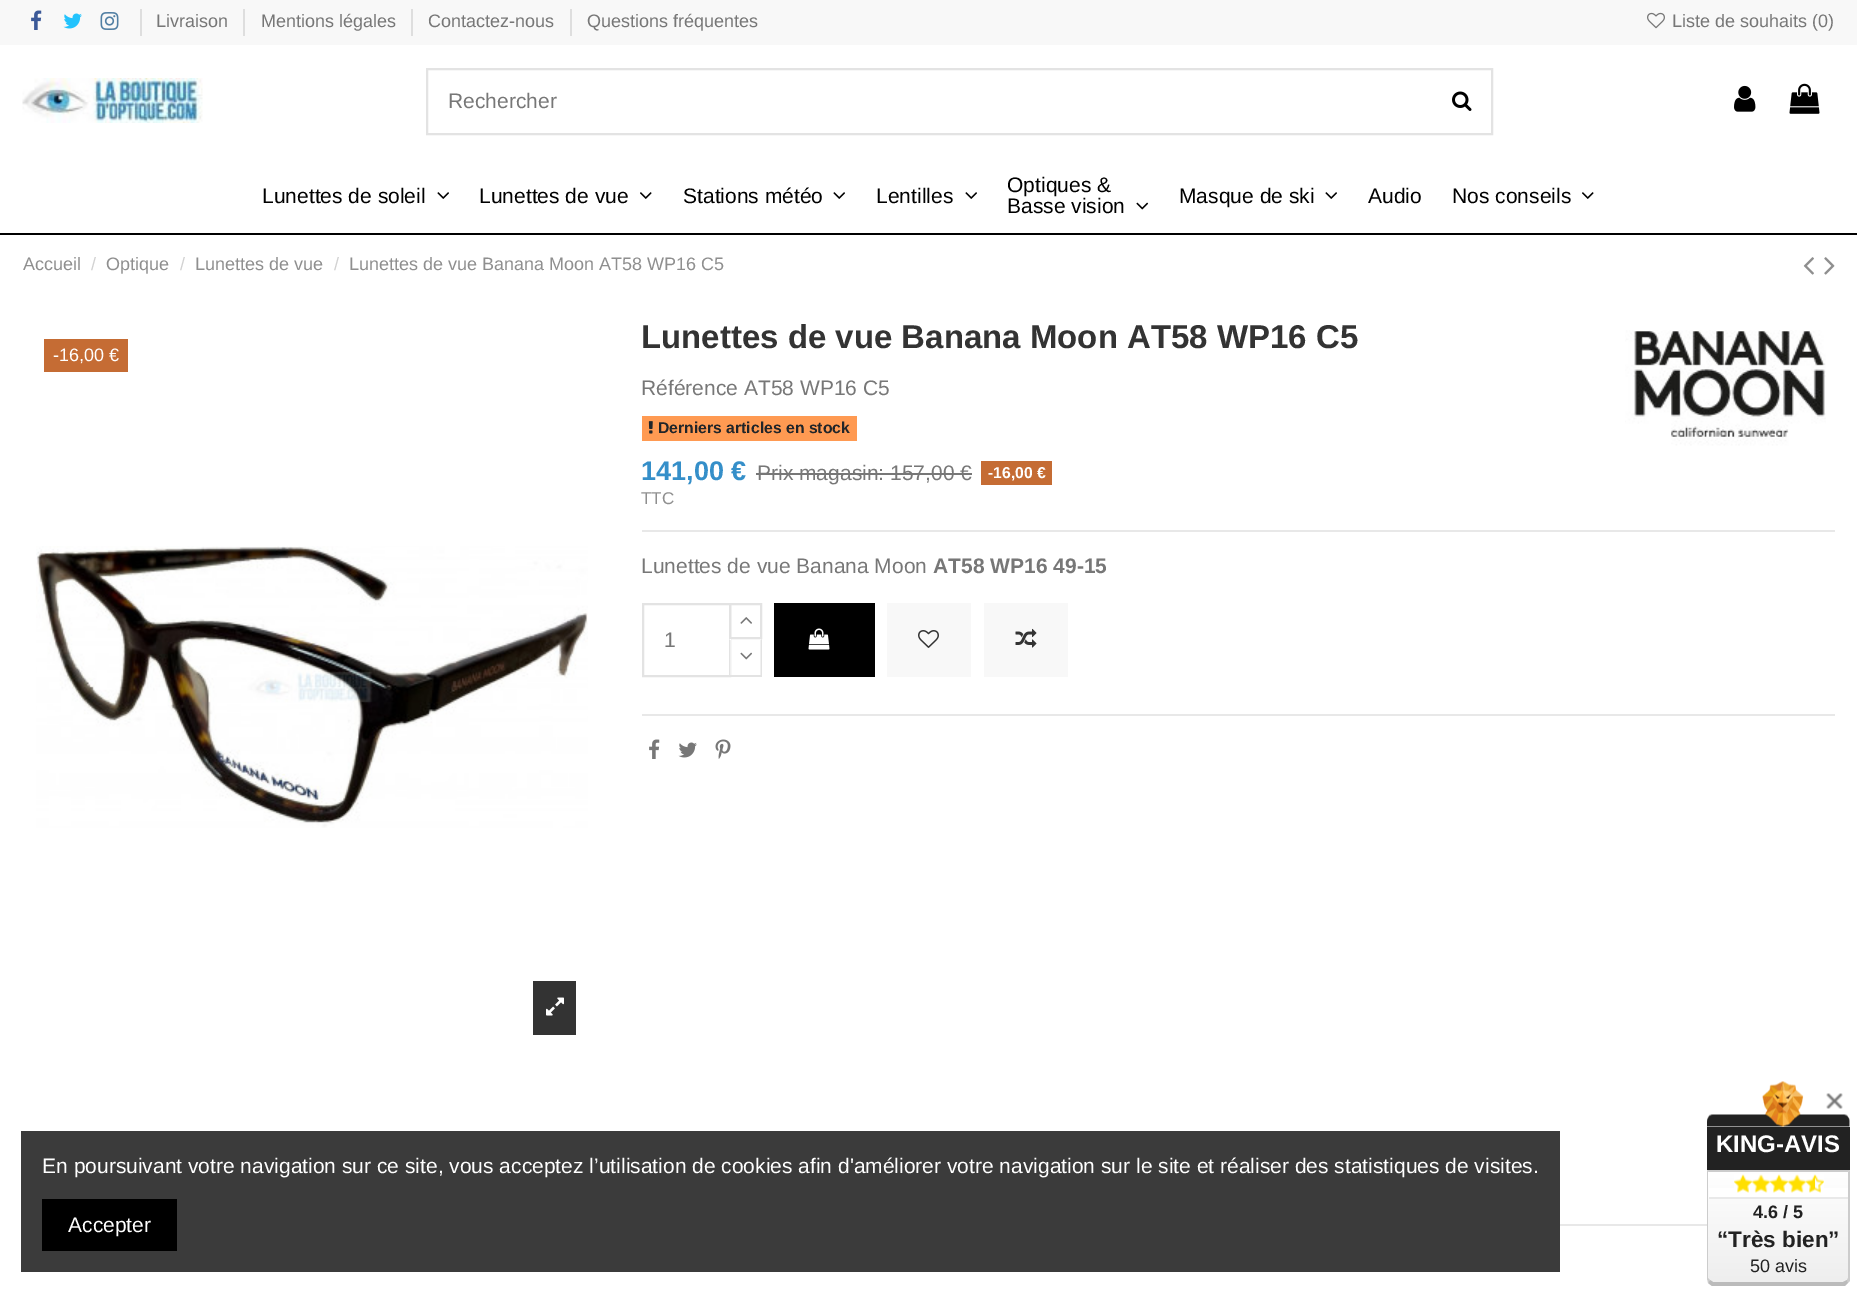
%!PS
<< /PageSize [1857 1292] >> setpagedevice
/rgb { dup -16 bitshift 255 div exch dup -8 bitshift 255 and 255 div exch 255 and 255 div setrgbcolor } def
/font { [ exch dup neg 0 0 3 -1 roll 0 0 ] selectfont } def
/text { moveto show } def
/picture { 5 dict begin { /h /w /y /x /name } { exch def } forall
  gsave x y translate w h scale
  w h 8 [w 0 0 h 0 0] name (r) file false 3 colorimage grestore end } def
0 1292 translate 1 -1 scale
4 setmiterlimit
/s1 { /LiberationSans-Regular 18 font 16#777777 rgb } def
/s2 { /LiberationSans-Regular 21 font 16#777777 rgb } def
/s3 { /LiberationSans-Regular 21 font 16#000000 rgb } def
/s4 { /LiberationSans-Regular 18 font 16#8F8F8F rgb } def
/s5 { /LiberationSans-Regular 18 font 16#D2D2D2 rgb } def
/s6 { /LiberationSans-Regular 18 font 16#FFFFFF rgb } def
/s7 { /LiberationSans-Bold 33 font 16#333333 rgb } def
/s8 { /LiberationSans-Bold 15.75 font 16#212529 rgb } def
/s9 { /LiberationSans-Bold 27 font 16#358FC9 rgb } def
/s10 { /LiberationSans-Bold 15.75 font 16#FFFFFF rgb } def
/s11 { /LiberationSans-Regular 17 font 16#8F8F8F rgb } def
/s12 { /LiberationSans-Bold 21 font 16#777777 rgb } def
/s13 { /LiberationSans-Regular 21 font 16#FFFFFF rgb } def
/s14 { /LiberationSans-Bold 24 font 16#FFFFFF rgb } def
/s15 { /LiberationSans-Bold 18 font 16#222222 rgb } def
/s16 { /LiberationSans-Bold 22.5 font 16#222222 rgb } def
/s17 { /LiberationSans-Regular 18 font 16#222222 rgb } def
16#FFFFFF rgb
0 0 1857 1292 rectfill
16#F8F8F8 rgb
0 0 1857 45 rectfill
(pic1.raw) 31 10 11 20 picture
(pic2.raw) 63 13 19 16 picture
(pic3.raw) 100 12 19 18 picture
16#DEDEDE rgb
140 9 2 27 rectfill
s1
(Livraison) 156 27 text
16#DEDEDE rgb
243 9 2 27 rectfill
s1
(Mentions légales) 261 27 text
16#DEDEDE rgb
411 9 2 27 rectfill
s1
(Contactez-nous) 428 27 text
16#DEDEDE rgb
570 9 2 27 rectfill
s1
(Questions fréquentes) 587 27 text
(pic4.raw) 1647 12 18 17 picture
(Liste de souhaits \(0\)) 1672 27 text
(pic5.raw) 22 78 181 45 picture
16#E3E3E3 rgb
2 setlinewidth
427 69 1065 65 rectstroke
s2
(Rechercher) 448 108 text
(pic6.raw) 1452 91 20 20 picture
(pic7.raw) 1734 85 22 27 picture
(pic8.raw) 1789 83 31 31 picture
s3
(Lunettes de soleil) 262 203 text
(pic9.raw) 437 192 12 7 picture
(Lunettes de vue) 479 203 text
(pic10.raw) 640 192 12 7 picture
(Stations météo) 683 203 text
(pic9.raw) 833 192 12 7 picture
(Lentilles) 876 203 text
(pic9.raw) 965 192 12 7 picture
(Optiques &) 1007 192 text
(Basse vision) 1007 213 text
(pic11.raw) 1136 202 13 8 picture
(Masque de ski) 1179 203 text
(pic9.raw) 1325 192 12 7 picture
(Audio) 1368 203 text
(Nos conseils) 1452 203 text
(pic10.raw) 1582 192 12 7 picture
0 233 1857 2 rectfill
s4
(Accueil) 23 270 text
s5
(/) 91 270 text
s4
(Optique) 106 270 text
s5
(/) 180 270 text
s4
(Lunettes de vue) 195 270 text
s5
(/) 334 270 text
s4
(Lunettes de vue Banana Moon AT58 WP16 C5) 349 270 text
(pic12.raw) 1803 257 11 18 picture
(pic13.raw) 1824 257 11 18 picture
16#C56C34 rgb
44 339 84 33 rectfill
s6
(-16,00 €) 53 361 text
(pic14.raw) 36 546 552 282 picture
16#333333 rgb
533 981 43 54 rectfill
(pic15.raw) 546 997 18 19 picture
16#E8E8E8 rgb
642 530 1193 2 rectfill
s7
(Lunettes de vue Banana Moon AT58 WP16 C5) 641 348 text
(pic16.raw) 1625 330 201 116 picture
s2
(Référence AT58 WP16 C5) 641 395 text
16#FF9A52 rgb
642 416 215 25 rectfill
(pic17.raw) 648 421 5 13 picture
s8
(Derniers articles en stock) 658 433 text
s9
(141,00 €) 641 480 text
s2
(Prix magasin: 157,00 €) 757 480 text
756 473 216 2 rectfill
16#C56C34 rgb
981 461 71 24 rectfill
s10
(-16,00 €) 988 478 text
s11
(TTC) 641 504 text
s2
(Lunettes de vue Banana Moon) 641 573 text
s12
(AT58 WP16 49-15) 933 573 text
16#E3E3E3 rgb
643 604 87 72 rectstroke
s2
(1) 664 647 text
16#E3E3E3 rgb
730 604 31 34 rectstroke
(pic18.raw) 740 617 12 7 picture
16#FFFFFF rgb
729 639 2 36 rectfill
16#E3E3E3 rgb
762 639 moveto 762 676.5 lineto 760.5 675 lineto 760.5 640.5 lineto closepath fill
729 675 33 2 rectfill
729 676.5 moveto 729 639 lineto 730.5 640.5 lineto 730.5 675 lineto closepath fill
(pic19.raw) 740 652 12 8 picture
16#000000 rgb
774 603 101 74 rectfill
(pic20.raw) 808 628 22 22 picture
16#F8F8F8 rgb
887 603 84 74 rectfill
(pic21.raw) 918 630 21 18 picture
984 603 84 74 rectfill
(pic22.raw) 1015 628 22 20 picture
16#E8E8E8 rgb
642 714 1193 2 rectfill
(pic23.raw) 649 739 11 20 picture
(pic24.raw) 678 742 19 16 picture
(pic25.raw) 715 739 16 20 picture
1560 1224 147 2 rectfill
16#3B3B3B rgb
21 1131 1539 141 rectfill
s13
(En poursuivant votre navigation sur ce site, vous acceptez l’utilisation de cookies afin d'améliorer votre navigation sur le site et réaliser des statistiques de visites.) 42 1173 text
16#000000 rgb
42 1199 135 52 rectfill
s13
(Accepter) 68 1232 text
(pic26.raw) 1707 1081 143 46 picture
16#222222 rgb
1707 1127 143 43 rectfill
s14
(KING-AVIS) 1716 1152 text
gsave 1708 1172 moveto 1848 1172 lineto 1848 1278 lineto 1848 1280 1845 1282 1842 1282 curveto 1714 1282 lineto 1711 1282 1708 1280 1708 1278 curveto closepath clip newpath
<< /ShadingType 2 /ColorSpace /DeviceRGB /Coords [1778 1172 1778 1283] /Extend [true true] /Function << /FunctionType 2 /Domain [0 1] /C0 [1 1 1] /C1 [0.933 0.933 0.933] /N 1 >> >> shfill grestore
16#CCCCCC rgb
1707 1170 moveto 1709 1172 lineto 1848 1172 lineto 1850 1170 lineto closepath fill
1850 1170 moveto 1850 1281 lineto 1848 1283 lineto 1847 1280 lineto 1848 1278 lineto 1848 1172 lineto closepath fill
16#BBBBBB rgb
1712 1286 moveto 1708 1283 lineto 1710 1280 lineto 1713 1282 lineto 1843 1282 lineto 1847 1280 lineto 1848 1283 lineto 1845 1286 lineto closepath fill
16#CCCCCC rgb
1708 1172 moveto 1709 1172 lineto 1707 1170 lineto 1707 1278 lineto 1707 1280 1708 1281 1708 1283 curveto 1710 1280 lineto 1708 1278 lineto closepath fill
(pic27.raw) 1826 1093 17 16 picture
16#FFFFFF rgb
1709 1188 139 9 rectfill
16#E9E9E9 rgb
1709 1197 139 2 rectfill
(pic28.raw) 1734 1174 18 19 picture
(pic29.raw) 1751 1174 20 19 picture
(pic30.raw) 1770 1174 18 19 picture
(pic29.raw) 1787 1174 20 19 picture
(pic31.raw) 1806 1174 18 19 picture
s15
(4.6 / 5) 1753 1218 text
s16
(“Très bien”) 1717 1247 text
s17
(50 avis) 1750 1272 text
showpage
